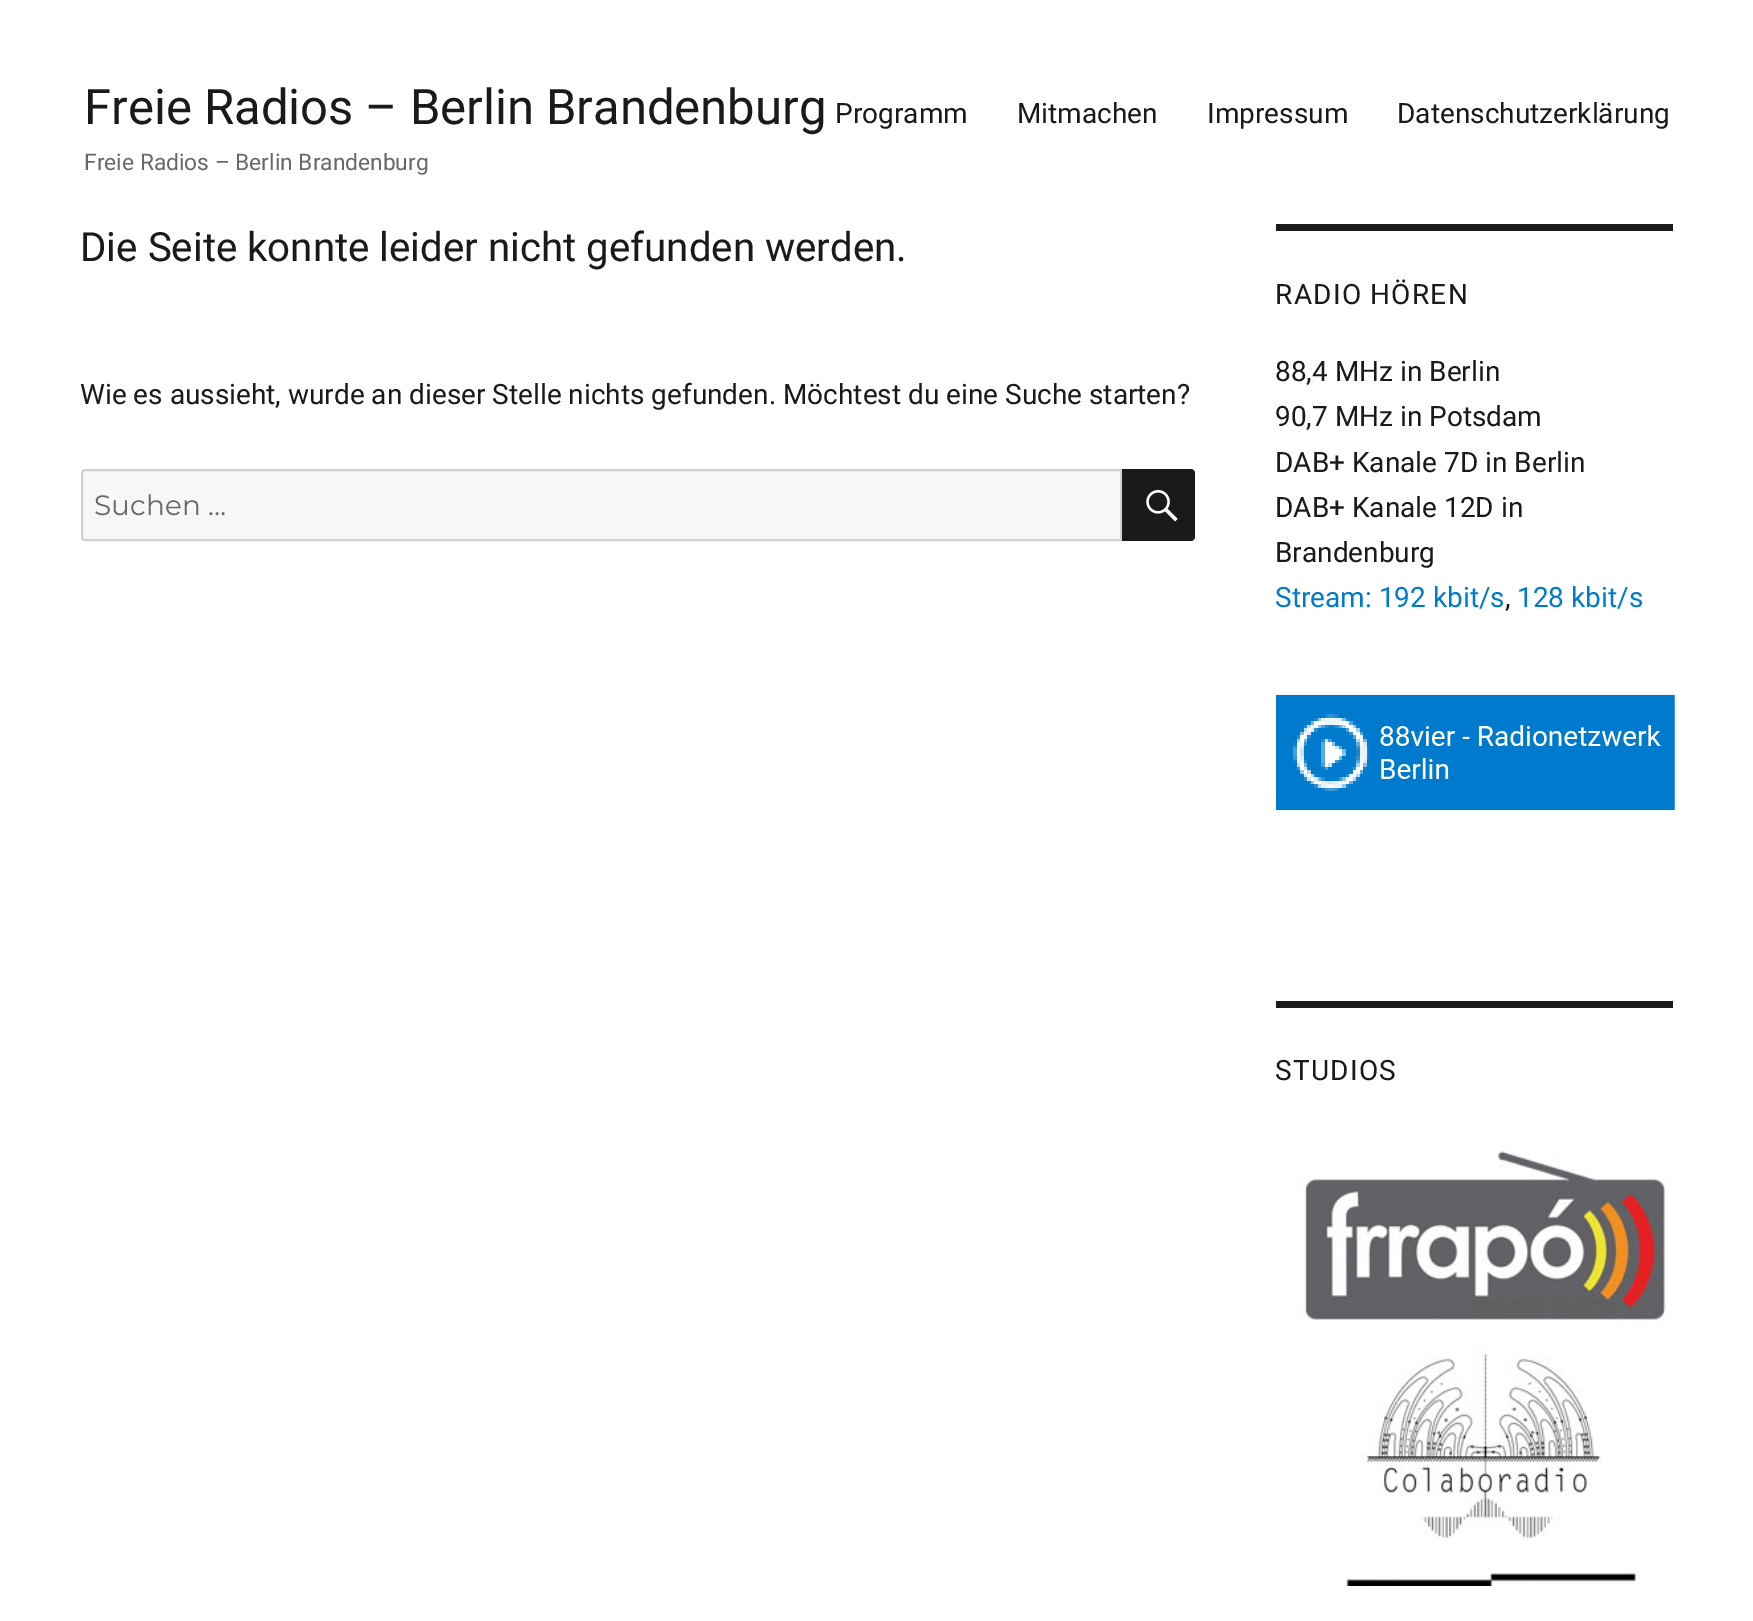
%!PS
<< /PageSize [1753 1621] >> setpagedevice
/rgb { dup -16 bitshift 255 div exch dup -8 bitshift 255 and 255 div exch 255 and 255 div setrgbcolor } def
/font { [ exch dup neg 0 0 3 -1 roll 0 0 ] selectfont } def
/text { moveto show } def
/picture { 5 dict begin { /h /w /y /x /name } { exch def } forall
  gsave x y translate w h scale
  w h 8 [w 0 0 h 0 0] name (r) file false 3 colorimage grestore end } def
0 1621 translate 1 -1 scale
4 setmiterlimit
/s1 { /Roboto-Regular 49 font 16#1A1A1A rgb } def
/s2 { /Roboto-Regular 22.75 font 16#686868 rgb } def
/s3 { /Roboto-Regular 28 font 16#1A1A1A rgb } def
/s4 { /Roboto-Regular 40.25 font 16#1A1A1A rgb } def
/s5 { /Montserrat-Regular 28 font 16#686868 rgb } def
/s6 { /Roboto-Regular 28 font 16#007ACC rgb } def
16#FFFFFF rgb
0 0 1753 1621 rectfill
s1
(Freie Radios – Berlin Brandenburg) 84 124 text
s2
(Freie Radios – Berlin Brandenburg) 84 170 text
s3
(Programm) 835 123 text
(Mitmachen) 1017 123 text
(Impressum) 1207 123 text
(Datenschutzerklärung) 1397 123 text
s4
(Die Seite konnte leider nicht gefunden werden.) 80 261 text
s3
(Wie es aussieht, wurde an dieser Stelle nichts gefunden. Möchtest du eine Suche starten?) 80 404 text
16#F7F7F7 rgb
85 470 moveto 1121 470 lineto 1121 540 lineto 85 540 lineto 83.5 540 82 538.5 82 537 curveto 82 473 lineto 82 471.5 83.5 470 85 470 curveto closepath gsave fill grestore
16#D1D1D1 rgb
2 setlinewidth
stroke
s5
(Suchen …) 94 515 text
16#1A1A1A rgb
1122 469 moveto 1191 469 lineto 1193 469 1195 471 1195 473 curveto 1195 537 lineto 1195 539 1193 541 1191 541 curveto 1122 541 lineto closepath fill
(pic1.raw) 1146 490 32 32 picture
1276 224 397 7 rectfill
/Roboto-Regular 28 font
1275 304 moveto 1.25 0 (RADIO HÖREN) ashow
(88,4 MHz in Berlin) 1275 381 text
(90,7 MHz in Potsdam) 1275 426 text
(DAB+ Kanale 7D in Berlin) 1275 472 text
(DAB+ Kanale 12D in) 1275 517 text
(Brandenburg) 1275 562 text
s6
(Stream: 192 kbit/s) 1275 607 text
s3
(,) 1505 607 text
s6
(128 kbit/s) 1517 607 text
(pic2.raw) 1275 694 400 117 picture
16#1A1A1A rgb
1276 1001 397 7 rectfill
1275 1080 moveto 1.25 0 (STUDIOS) ashow
(pic3.raw) 1297 1150 369 172 picture
(pic4.raw) 1361 1346 241 194 picture
(pic5.raw) 1342 1568 294 18 picture
showpage
